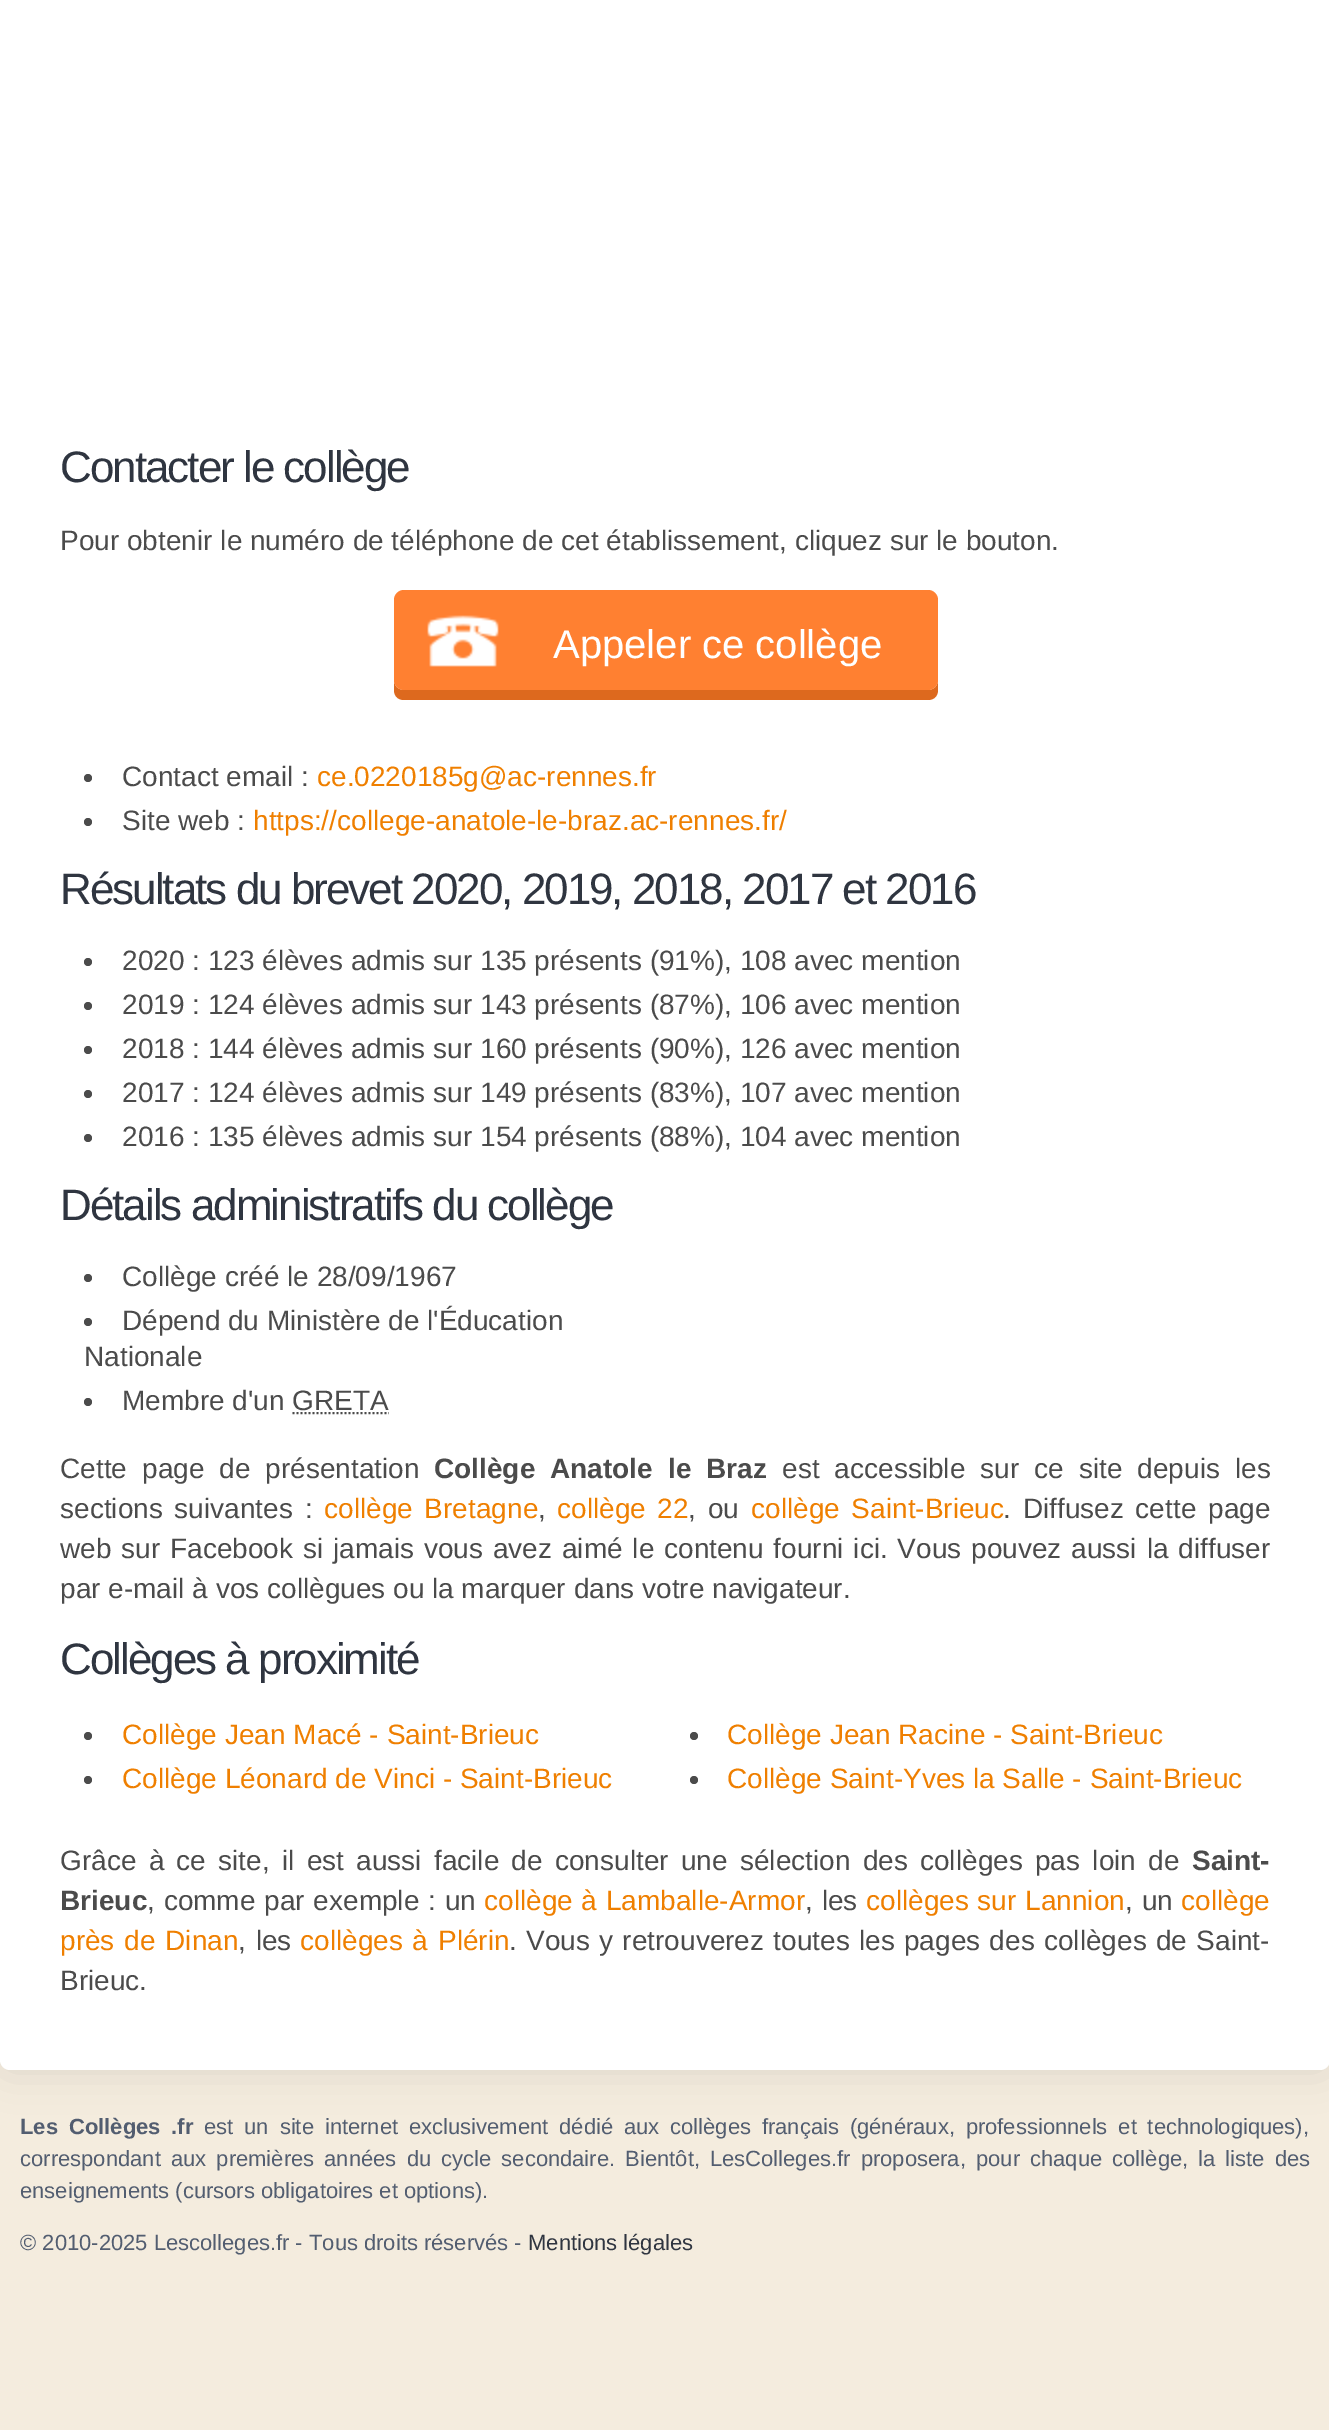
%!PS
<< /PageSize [1329 2430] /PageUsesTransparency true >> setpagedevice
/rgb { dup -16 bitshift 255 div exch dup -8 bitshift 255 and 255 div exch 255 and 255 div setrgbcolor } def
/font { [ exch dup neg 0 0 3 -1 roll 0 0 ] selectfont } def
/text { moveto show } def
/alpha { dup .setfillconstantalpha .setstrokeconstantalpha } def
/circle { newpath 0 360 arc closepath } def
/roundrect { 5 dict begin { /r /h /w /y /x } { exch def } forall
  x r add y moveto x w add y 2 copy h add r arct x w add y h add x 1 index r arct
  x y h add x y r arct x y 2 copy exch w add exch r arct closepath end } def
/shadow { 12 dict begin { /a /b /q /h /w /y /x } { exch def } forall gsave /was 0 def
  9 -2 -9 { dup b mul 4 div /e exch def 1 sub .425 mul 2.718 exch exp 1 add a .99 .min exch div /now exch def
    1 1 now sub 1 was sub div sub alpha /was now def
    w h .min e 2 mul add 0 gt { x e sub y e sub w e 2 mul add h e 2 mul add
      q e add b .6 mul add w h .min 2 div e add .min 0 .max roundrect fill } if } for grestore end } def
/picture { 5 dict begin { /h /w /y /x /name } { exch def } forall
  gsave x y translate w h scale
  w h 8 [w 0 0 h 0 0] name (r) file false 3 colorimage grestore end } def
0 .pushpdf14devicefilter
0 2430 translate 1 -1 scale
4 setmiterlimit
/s1 { /LiberationSans-Regular 28 font 16#4B4B4B rgb } def
/s2 { /LiberationSans-Regular 40 font 16#FFFFFF rgb } def
/s3 { /LiberationSans-Regular 28 font 16#EF7F00 rgb } def
/s4 { /LiberationSans-Bold 28 font 16#4B4B4B rgb } def
/s5 { /LiberationSans-Regular 22 font 16#525D70 rgb } def
/s6 { /LiberationSans-Regular 22 font 16#2F3540 rgb } def
16#F4ECDE rgb
0 0 1329 2430 rectfill
16#000000 rgb
0 -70 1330 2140 10 20 0.1 shadow
16#FFFFFF rgb
0 -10 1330 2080 10 roundrect fill
/LiberationSans-Regular 44 font
16#2F3540 rgb
60 482 moveto -2 0 (Contacter le collège) ashow
s1
(Pour obtenir le numéro de téléphone de cet établissement, cliquez sur le bouton.) 60 550 text
16#DD691E rgb
394 680 moveto 394 690 lineto 394 696 398 700 404 700 curveto 928 700 lineto 934 700 938 696 938 690 curveto 938 680 lineto 938 686 934 690 928 690 curveto 404 690 lineto 398 690 394 686 394 680 curveto closepath fill
16#FF8031 rgb
394 590 544 100 10 roundrect fill
(pic1.raw) 427 615 72 52 picture
s2
(Appeler ce collège) 553 658 text
16#4B4B4B rgb
88 778 4 circle fill
s1
(Contact email :) 122 786 text
s3
(ce.0220185g@ac-rennes.fr) 317 786 text
16#4B4B4B rgb
88 822 4 circle fill
(Site web :) 122 830 text
s3
(https://college-anatole-le-braz.ac-rennes.fr/) 253 830 text
/LiberationSans-Regular 44 font
16#2F3540 rgb
60 904 moveto -2 0 (Résultats du brevet 2020, 2019, 2018, 2017 et 2016) ashow
16#4B4B4B rgb
88 962 4 circle fill
s1
(2020 : 123 élèves admis sur 135 présents \(91%\), 108 avec mention) 122 970 text
88 1006 4 circle fill
(2019 : 124 élèves admis sur 143 présents \(87%\), 106 avec mention) 122 1014 text
88 1050 4 circle fill
(2018 : 144 élèves admis sur 160 présents \(90%\), 126 avec mention) 122 1058 text
88 1094 4 circle fill
(2017 : 124 élèves admis sur 149 présents \(83%\), 107 avec mention) 122 1102 text
88 1138 4 circle fill
(2016 : 135 élèves admis sur 154 présents \(88%\), 104 avec mention) 122 1146 text
/LiberationSans-Regular 44 font
16#2F3540 rgb
60 1220 moveto -2 0 (Détails administratifs du collège) ashow
16#4B4B4B rgb
88 1278 4 circle fill
s1
(Collège créé le 28/09/1967) 122 1286 text
88 1322 4 circle fill
(Dépend du Ministère de l'Éducation) 122 1330 text
(Nationale) 84 1366 text
88 1402 4 circle fill
(Membre d'un GRETA) 122 1410 text
2 setlinewidth
[2 2] 0 setdash
292.5 1413 moveto 389 1413 lineto stroke
60 1478 moveto 7.25 0 32 (Cette page de présentation) widthshow
/LiberationSans-Bold 28 font
434 1478 moveto 7.25 0 32 (Collège Anatole le Braz) widthshow
/LiberationSans-Regular 28 font
782 1478 moveto 7.25 0 32 (est accessible sur ce site depuis les) widthshow
60 1518 moveto 4 0 32 (sections suivantes :) widthshow
16#EF7F00 rgb
324 1518 moveto 4 0 32 (collège Bretagne) widthshow
s1
(,) 538 1518 text
16#EF7F00 rgb
557 1518 moveto 4 0 32 (collège 22) widthshow
16#4B4B4B rgb
688 1518 moveto 4 0 32 (, ou) widthshow
16#EF7F00 rgb
751 1518 moveto 4 0 32 (collège Saint-Brieuc) widthshow
16#4B4B4B rgb
1003 1518 moveto 4 0 32 (. Diffusez cette page) widthshow
60 1558 moveto 2.1 0 32 (web sur Facebook si jamais vous avez aimé le contenu fourni ici. Vous pouvez aussi la diffuser) widthshow
(par e-mail à vos collègues ou la marquer dans votre navigateur.) 60 1598 text
/LiberationSans-Regular 44 font
16#2F3540 rgb
60 1674 moveto -2 0 (Collèges à proximité) ashow
16#4B4B4B rgb
88 1736 4 circle fill
s3
(Collège Jean Macé - Saint-Brieuc) 122 1744 text
16#4B4B4B rgb
694 1736 4 circle fill
s3
(Collège Jean Racine - Saint-Brieuc) 727 1744 text
16#4B4B4B rgb
88 1780 4 circle fill
s3
(Collège Léonard de Vinci - Saint-Brieuc) 122 1788 text
16#4B4B4B rgb
694 1780 4 circle fill
s3
(Collège Saint-Yves la Salle - Saint-Brieuc) 727 1788 text
16#4B4B4B rgb
60 1870 moveto 4.5 0 32 (Grâce à ce site, il est aussi facile de consulter une sélection des collèges pas loin de) widthshow
s4
(Saint-) 1192 1870 text
(Brieuc) 60 1910 text
/LiberationSans-Regular 28 font
147 1910 moveto 1 0 32 (, comme par exemple : un) widthshow
16#EF7F00 rgb
484 1910 moveto 1 0 32 (collège à Lamballe-Armor) widthshow
16#4B4B4B rgb
805 1910 moveto 1 0 32 (, les) widthshow
16#EF7F00 rgb
866 1910 moveto 1 0 32 (collèges sur Lannion) widthshow
16#4B4B4B rgb
1125 1910 moveto 1 0 32 (, un) widthshow
s3
(collège) 1181 1910 text
60 1950 moveto 2 0 32 (près de Dinan) widthshow
16#4B4B4B rgb
238 1950 moveto 2 0 32 (, les) widthshow
16#EF7F00 rgb
300 1950 moveto 2 0 32 (collèges à Plérin) widthshow
16#4B4B4B rgb
509 1950 moveto 1.5 0 32 (. Vous y retrouverez toutes les pages des collèges de Saint-) widthshow
(Brieuc.) 60 1990 text
/LiberationSans-Bold 22 font
16#525D70 rgb
20 2134 moveto 4.75 0 32 (Les Collèges .fr) widthshow
/LiberationSans-Regular 22 font
204 2134 moveto 4.75 0 32 (est un site internet exclusivement dédié aux collèges français \(généraux, professionnels et technologiques\),) widthshow
20 2166 moveto 4 0 32 (correspondant aux premières années du cycle secondaire. Bientôt, LesColleges.fr proposera, pour chaque collège, la liste des) widthshow
(enseignements \(cursors obligatoires et options\).) 20 2198 text
(© 2010-2025 Lescolleges.fr - Tous droits réservés -) 20 2250 text
s6
(Mentions légales) 528 2250 text
.poppdf14devicefilter showpage
